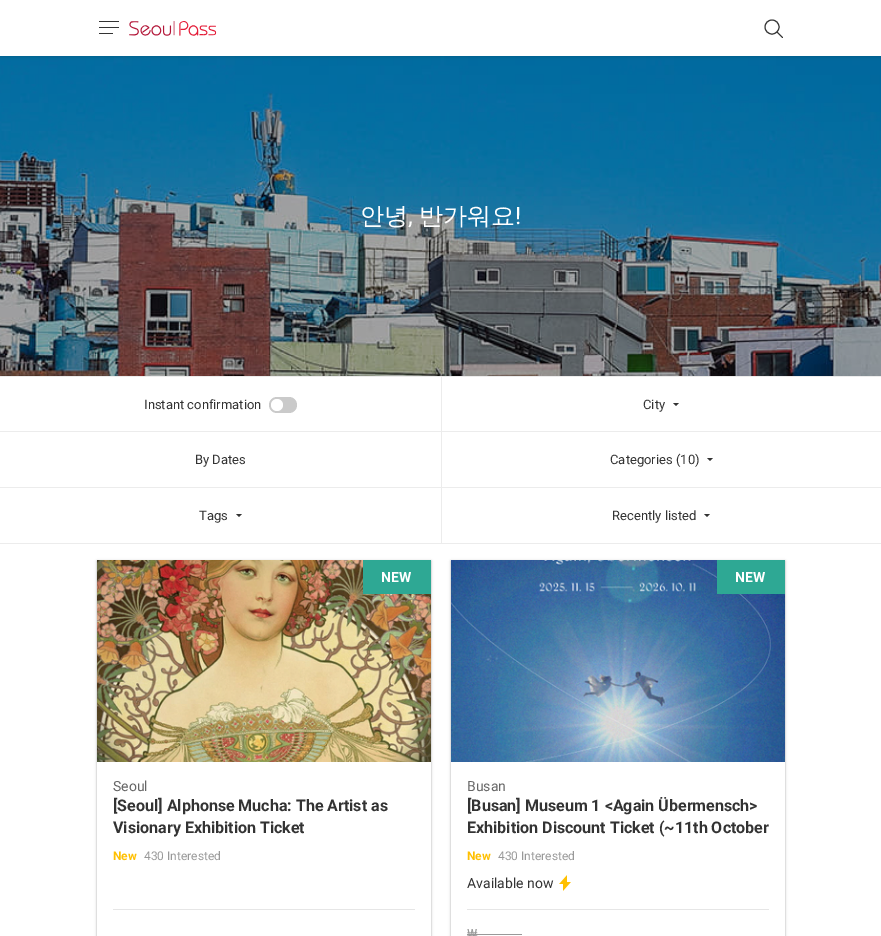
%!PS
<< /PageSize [881 936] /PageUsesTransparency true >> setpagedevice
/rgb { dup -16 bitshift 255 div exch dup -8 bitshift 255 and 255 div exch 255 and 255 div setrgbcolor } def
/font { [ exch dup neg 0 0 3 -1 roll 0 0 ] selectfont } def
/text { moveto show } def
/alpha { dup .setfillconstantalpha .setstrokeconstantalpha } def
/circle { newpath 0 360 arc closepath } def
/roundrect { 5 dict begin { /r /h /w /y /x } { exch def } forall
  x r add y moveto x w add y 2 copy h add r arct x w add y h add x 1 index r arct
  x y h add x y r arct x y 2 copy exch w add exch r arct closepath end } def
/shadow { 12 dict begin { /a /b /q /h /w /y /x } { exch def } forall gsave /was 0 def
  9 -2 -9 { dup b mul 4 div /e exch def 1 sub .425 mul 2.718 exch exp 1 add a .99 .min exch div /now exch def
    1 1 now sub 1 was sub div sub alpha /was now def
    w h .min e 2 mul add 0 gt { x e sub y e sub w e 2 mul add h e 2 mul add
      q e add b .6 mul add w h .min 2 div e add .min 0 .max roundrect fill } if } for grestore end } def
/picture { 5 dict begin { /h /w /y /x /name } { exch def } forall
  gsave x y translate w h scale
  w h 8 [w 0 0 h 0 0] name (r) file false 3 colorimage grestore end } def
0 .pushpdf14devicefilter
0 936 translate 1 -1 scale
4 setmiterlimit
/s1 { /WenQuanYiZenHei-Medium 24 font 16#FFFFFF rgb } def
/s2 { /Roboto-Regular 24 font 16#FFFFFF rgb } def
/s3 { /Roboto-Regular 13 font 16#333333 rgb } def
/s4 { /Roboto-Bold 14 font 16#FFFFFF rgb } def
/s5 { /Roboto-Regular 14 font 16#666666 rgb } def
/s6 { /Roboto-Bold 16 font 16#333333 rgb } def
/s7 { /Roboto-Bold 12 font 16#FFC002 rgb } def
/s8 { /Roboto-Regular 12 font 16#999999 rgb } def
/s9 { /Roboto-Regular 14 font 16#333333 rgb } def
/s10 { /Roboto-Regular 14 font 16#999999 rgb } def
16#FFFFFF rgb
0 0 881 936 rectfill
(pic2.raw) 0 56 881 320 picture
16#000000 rgb
0 1 881 56 0 1.5 0.12 shadow
16#FFFFFF rgb
0 0 881 56 rectfill
16#333333 rgb
99 21 20 1 0.5 roundrect fill
99 27 20 1 0.5 roundrect fill
99 33 14 1 0.5 roundrect fill
(pic1.raw) 129 21 88 15 picture
772 27 7 circle stroke
1 setlinecap
1 setlinejoin
777 32 moveto 782.5 37.5 lineto stroke
s1
(안녕) 360 224 text
s2
(,) 408 224 text
s1
(반가워요) 419 224 text
s2
(!) 515 224 text
16#ECECEC rgb
0 376 881 1 rectfill
0 543 881 1 rectfill
0 431 881 1 rectfill
s3
(Instant confirmation) 144 409 text
16#CACACA rgb
269 397 28 16 8 roundrect fill
16#FFFFFF rgb
277 405 6 circle fill
s3
(City) 643 409 text
673 403 moveto 679 403 lineto 676 406 lineto closepath fill
(By Dates) 195 464 text
16#ECECEC rgb
0 487 881 1 rectfill
441 377 1 166 rectfill
s3
(Categories \(10\)) 610 464 text
707 458 moveto 713 458 lineto 710 461 lineto closepath fill
(Tags) 199 520 text
236 514 moveto 242 514 lineto 239 517 lineto closepath fill
(Recently listed) 612 520 text
704 514 moveto 710 514 lineto 707 517 lineto closepath fill
gsave
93 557 moveto 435 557 lineto 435 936 lineto 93 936 lineto closepath 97 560 moveto 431 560 lineto 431 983 lineto 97 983 lineto closepath eoclip newpath
16#000000 rgb
97 561 334 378 0 1 0.24 shadow
grestore
gsave
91 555 moveto 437 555 lineto 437 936 lineto 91 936 lineto closepath 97 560 moveto 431 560 lineto 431 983 lineto 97 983 lineto closepath eoclip newpath
16#000000 rgb
97 561 334 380 0 1.5 0.12 shadow
grestore
(pic3.raw) 97 560 334 202 picture
16#2EA894 rgb
363 560 68 34 rectfill
s4
(NEW) 381 582 text
s5
(Seoul) 113 791 text
s6
([Seoul] Alphonse Mucha: The Artist as) 113 811 text
(Visionary Exhibition Ticket) 113 833 text
s7
(New) 113 860 text
s8
(430 Interested) 144 860 text
16#E6E6E6 rgb
113 909 302 1 rectfill
gsave
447 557 moveto 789 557 lineto 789 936 lineto 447 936 lineto closepath 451 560 moveto 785 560 lineto 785 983 lineto 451 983 lineto closepath eoclip newpath
16#000000 rgb
451 561 334 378 0 1 0.24 shadow
grestore
gsave
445 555 moveto 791 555 lineto 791 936 lineto 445 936 lineto closepath 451 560 moveto 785 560 lineto 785 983 lineto 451 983 lineto closepath eoclip newpath
16#000000 rgb
451 561 334 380 0 1.5 0.12 shadow
grestore
(pic4.raw) 451 560 334 202 picture
16#2EA894 rgb
717 560 68 34 rectfill
s4
(NEW) 735 582 text
s5
(Busan) 467 791 text
s6
([Busan] Museum 1 <Again Übermensch>) 467 811 text
(Exhibition Discount Ticket \(~11th October) 467 833 text
s7
(New) 467 860 text
s8
(430 Interested) 498 860 text
s9
(Available now) 467 888 text
(pic5.raw) 559 875 12 16 picture
16#E6E6E6 rgb
467 909 302 1 rectfill
s10
(₩) 467 939 text
467 934 55 1 rectfill
.poppdf14devicefilter showpage
